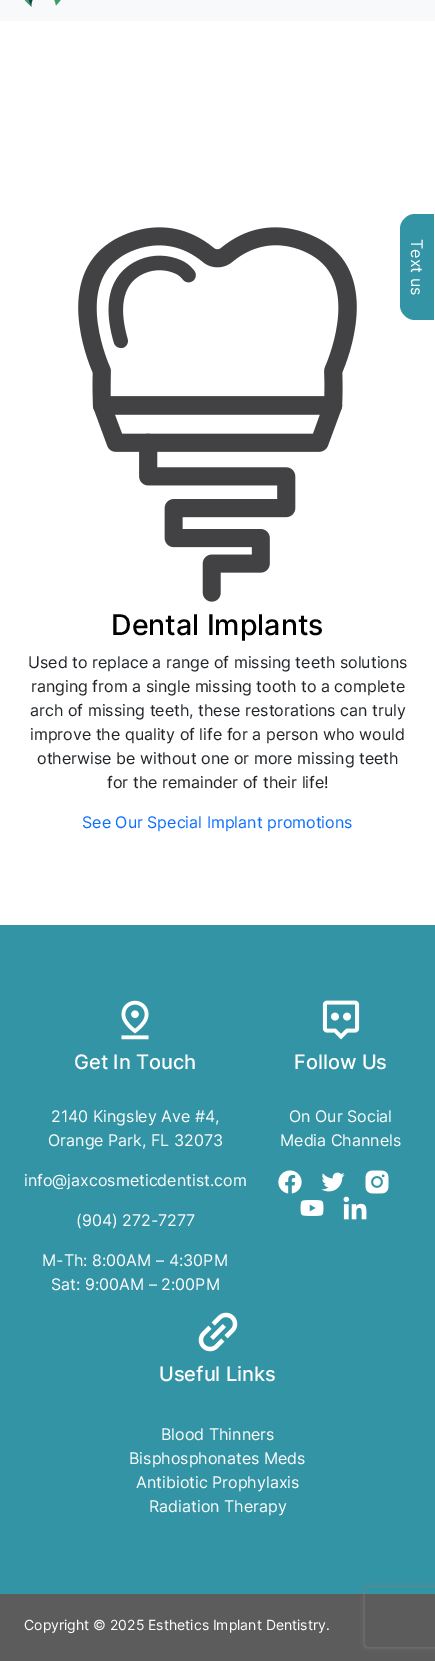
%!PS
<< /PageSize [435 1661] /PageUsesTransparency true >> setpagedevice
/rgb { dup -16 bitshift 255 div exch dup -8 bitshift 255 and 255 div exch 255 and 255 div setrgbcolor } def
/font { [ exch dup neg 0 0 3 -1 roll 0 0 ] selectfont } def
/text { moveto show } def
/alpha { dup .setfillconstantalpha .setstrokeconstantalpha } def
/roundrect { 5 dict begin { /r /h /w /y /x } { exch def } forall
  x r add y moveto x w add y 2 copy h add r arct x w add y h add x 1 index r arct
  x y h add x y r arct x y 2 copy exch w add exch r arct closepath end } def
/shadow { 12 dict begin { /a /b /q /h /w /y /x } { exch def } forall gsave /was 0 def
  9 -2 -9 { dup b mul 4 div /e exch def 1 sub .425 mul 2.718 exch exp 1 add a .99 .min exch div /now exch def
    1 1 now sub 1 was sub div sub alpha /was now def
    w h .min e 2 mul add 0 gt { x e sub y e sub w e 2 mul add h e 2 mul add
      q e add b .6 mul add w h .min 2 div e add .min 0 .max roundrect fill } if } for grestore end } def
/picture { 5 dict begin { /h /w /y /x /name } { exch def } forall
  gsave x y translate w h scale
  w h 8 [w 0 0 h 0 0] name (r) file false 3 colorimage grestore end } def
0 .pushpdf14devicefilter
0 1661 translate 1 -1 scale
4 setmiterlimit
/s1 { /Inter-Medium 28.5 font 16#000000 rgb } def
/s2 { /Inter-Regular 16 font 16#212529 rgb } def
/s3 { /Inter-Regular 16 font 16#0D6EFD rgb } def
/s4 { /Inter-Medium 20 font 16#FFFFFF rgb } def
/s5 { /Inter-Regular 16 font 16#FFFFFF rgb } def
/s6 { /Inter-Regular 14 font 16#FFFFFF rgb } def
16#FFFFFF rgb
0 0 435 1661 rectfill
16#3294A4 rgb
434 215 moveto 434 319 lineto 434 320 433 320 433 320 curveto 415 320 lineto 407 320 400 313 400 305 curveto 400 229 lineto 400 221 407 214 415 214 curveto 433 214 lineto 433 214 434 214 434 215 curveto closepath fill
/Inter-Regular 16 font
16#FFFFFF rgb
gsave 411 239 translate 90 rotate 0 0 moveto (Text us) show grestore
16#F8F9FA rgb
0 0 435 21 rectfill
(pic1.raw) 24 0 37 7 picture
(pic2.raw) 78 227 279 375 picture
s1
(Dental Implants) 111 635 text
s2
(Used to replace a range of missing teeth solutions) 28 668 text
(ranging from a single missing tooth to a complete) 31 692 text
(arch of missing teeth, these restorations can truly) 30 716 text
(improve the quality of life for a person who would) 30 740 text
(otherwise be without one or more missing teeth) 37 764 text
(for the remainder of their life!) 107 788 text
s3
(See Our Special Implant promotions) 82 828 text
16#3294A4 rgb
0 925 435 669 rectfill
(pic3.raw) 121 1000 28 40 picture
s4
(Get In Touch) 74 1069 text
s5
(2140 Kingsley Ave #4,) 51 1122 text
(Orange Park, FL 32073) 48 1146 text
(info@jaxcosmeticdentist.com) 24 1186 text
(\(904\) 272-7277) 76 1226 text
(M-Th: 8:00AM – 4:30PM) 42 1266 text
(Sat: 9:00AM – 2:00PM) 51 1290 text
(pic4.raw) 322 1000 38 40 picture
s4
(Follow Us) 294 1069 text
s5
(On Our Social) 289 1122 text
(Media Channels) 280 1146 text
(pic5.raw) 278 1170 24 24 picture
(pic6.raw) 321 1172 24 20 picture
(pic7.raw) 365 1170 24 24 picture
(pic8.raw) 300 1200 24 16 picture
(pic9.raw) 343 1196 24 24 picture
(pic10.raw) 198 1312 40 40 picture
s4
(Useful Links) 159 1381 text
s5
(Blood Thinners) 161 1440 text
(Bisphosphonates Meds) 129 1464 text
(Antibiotic Prophylaxis) 136 1488 text
(Radiation Therapy) 149 1512 text
16#5C5C5C rgb
0 1594 435 67 rectfill
s6
(Copyright © 2025 Esthetics Implant Dentistry.) 24 1630 text
gsave
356 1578 moveto 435 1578 lineto 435 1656 lineto 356 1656 lineto closepath 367 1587 moveto 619 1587 lineto 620 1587 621 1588 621 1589 curveto 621 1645 lineto 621 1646 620 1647 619 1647 curveto 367 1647 lineto 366 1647 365 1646 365 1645 curveto 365 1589 lineto 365 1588 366 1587 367 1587 curveto closepath eoclip newpath
16#808080 rgb
365 1587 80 60 2 2.5 1 shadow
grestore
.poppdf14devicefilter showpage
